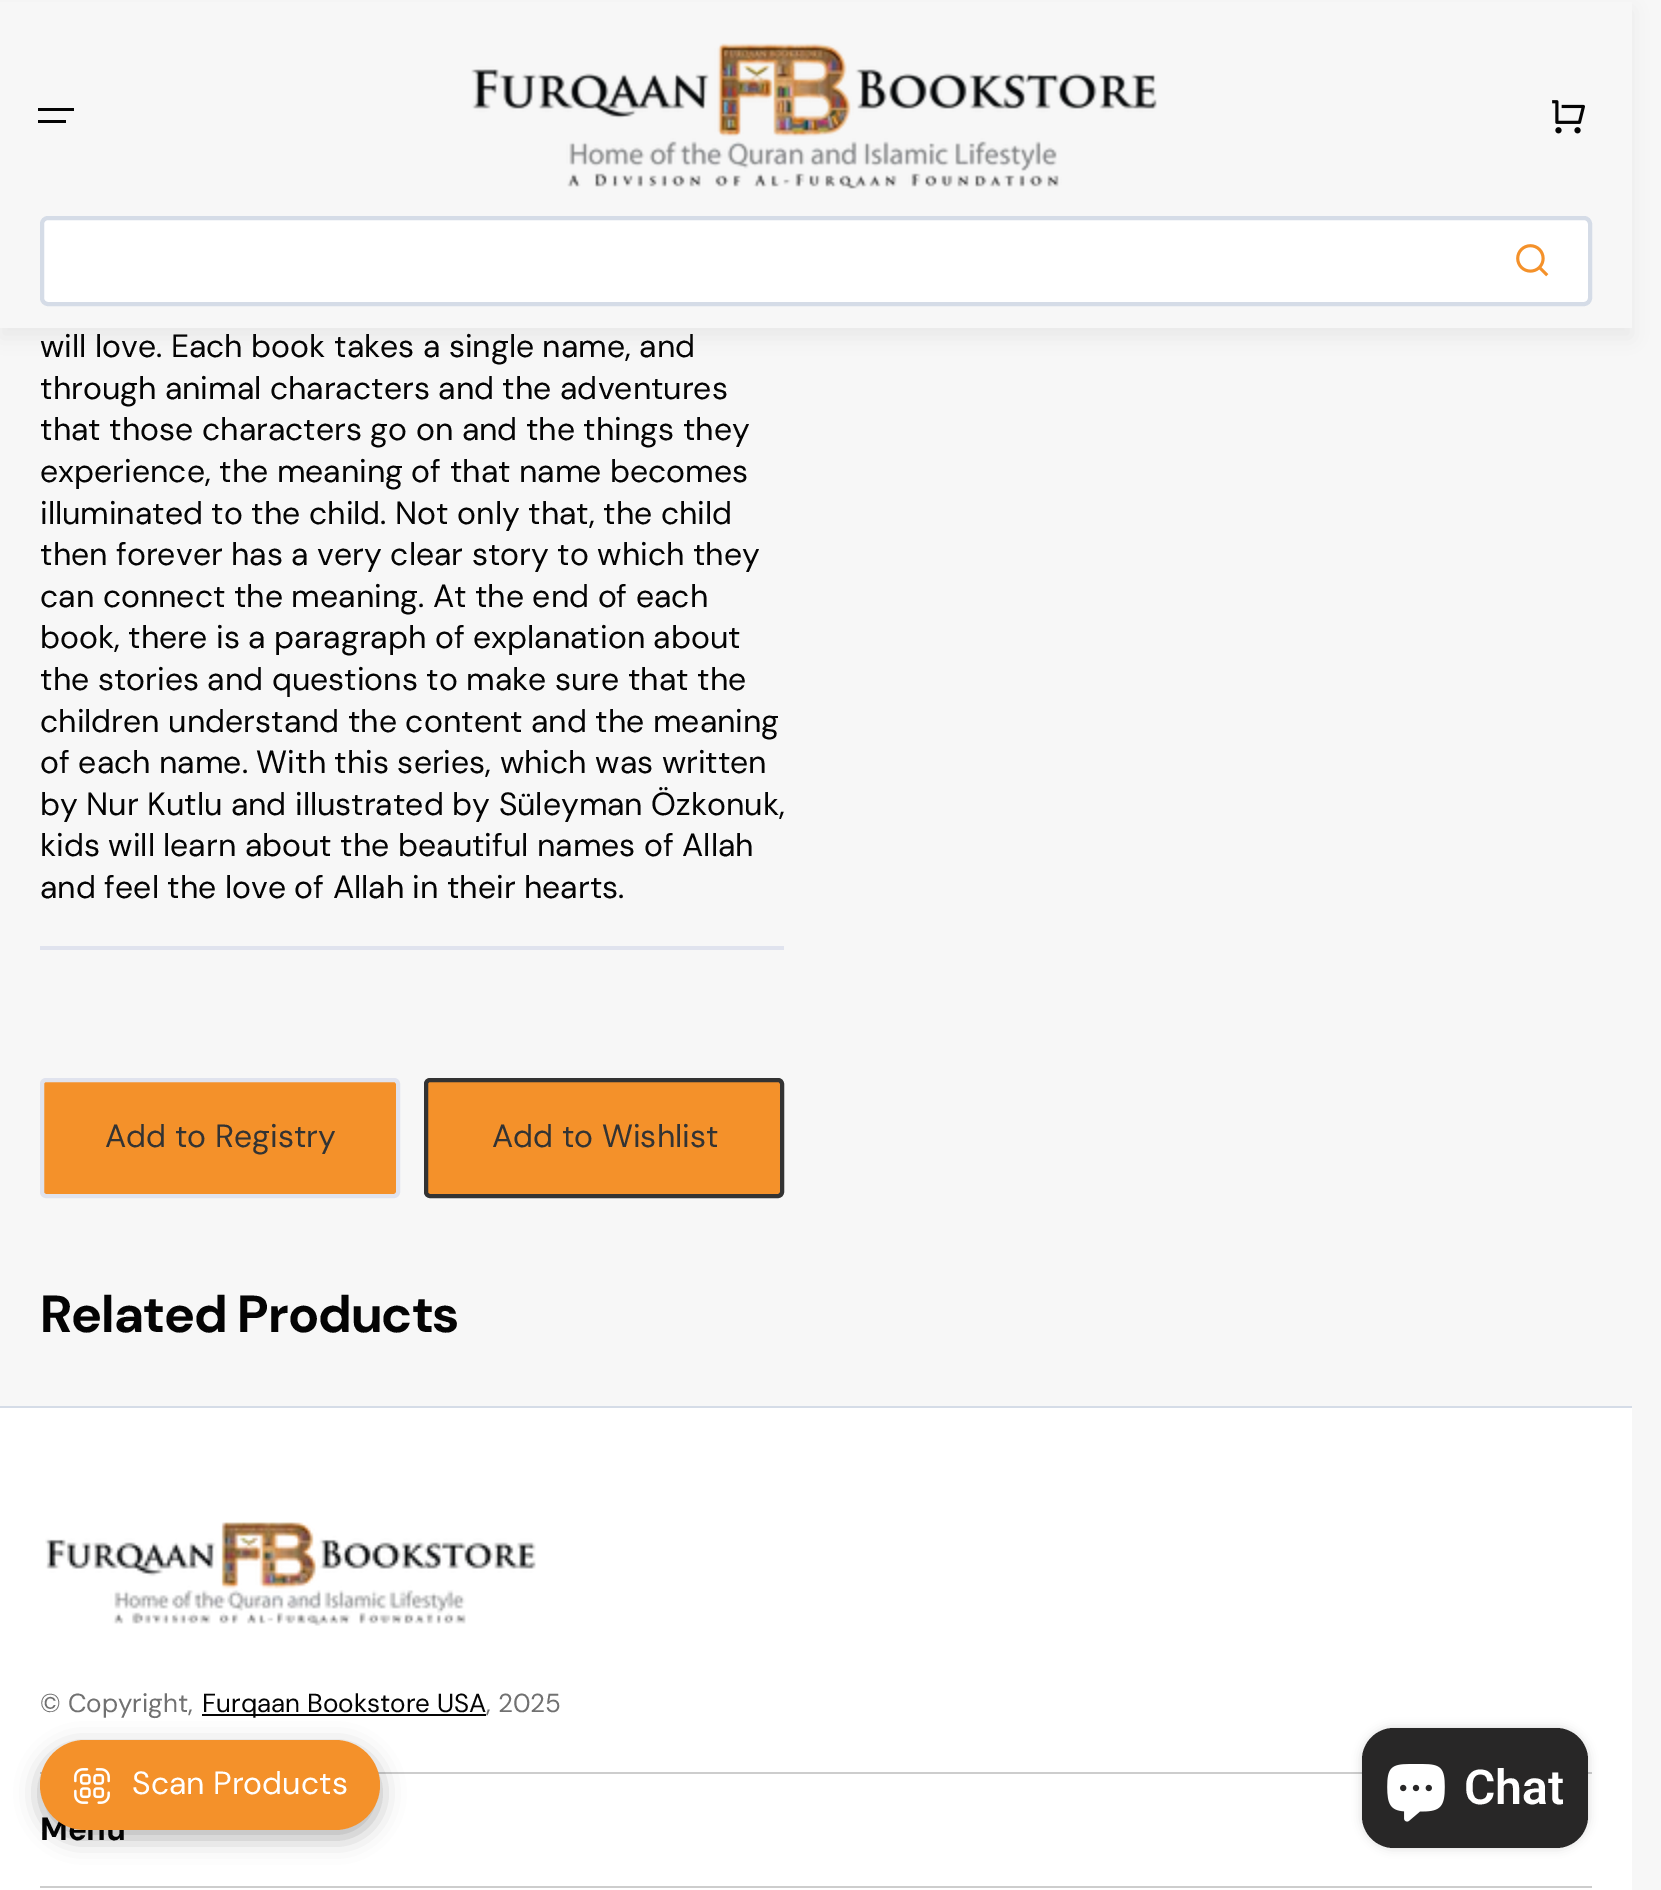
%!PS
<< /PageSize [1661 1890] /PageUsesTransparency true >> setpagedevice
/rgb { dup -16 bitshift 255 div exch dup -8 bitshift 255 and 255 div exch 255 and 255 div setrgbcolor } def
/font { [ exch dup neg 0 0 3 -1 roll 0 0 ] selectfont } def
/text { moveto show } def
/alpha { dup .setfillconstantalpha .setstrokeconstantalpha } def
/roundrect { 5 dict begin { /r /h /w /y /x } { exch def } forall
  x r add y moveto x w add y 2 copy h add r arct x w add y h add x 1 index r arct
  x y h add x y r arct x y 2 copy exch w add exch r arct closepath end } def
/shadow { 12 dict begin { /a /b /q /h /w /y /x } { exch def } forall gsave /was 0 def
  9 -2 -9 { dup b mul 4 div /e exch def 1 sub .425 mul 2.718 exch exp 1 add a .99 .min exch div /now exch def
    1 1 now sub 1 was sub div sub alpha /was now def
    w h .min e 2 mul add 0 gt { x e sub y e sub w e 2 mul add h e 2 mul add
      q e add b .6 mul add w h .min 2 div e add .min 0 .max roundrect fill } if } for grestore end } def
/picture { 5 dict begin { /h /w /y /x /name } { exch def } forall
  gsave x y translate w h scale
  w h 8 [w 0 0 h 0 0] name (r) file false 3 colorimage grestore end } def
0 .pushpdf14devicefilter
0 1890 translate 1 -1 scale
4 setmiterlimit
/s1 { /DMSans-Regular 32 font 16#040404 rgb } def
/s2 { /DMSans-Regular 32 font 16#333333 rgb } def
/s3 { /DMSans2-Regular 26 font 16#717171 rgb } def
/s4 { /DMSans2-Regular 26 font 16#040404 rgb } def
/s5 { /Roboto-SemiBold 48 font 16#FFFFFF rgb } def
/s6 { /DMSans-Regular 32 font 16#FFFFFF rgb } def
16#F7F7F7 rgb
0 0 1661 1890 rectfill
16#010101 rgb
0 10 1632 328 0 10 0.05 shadow
16#F7F7F7 rgb
0 2 1632 326 rectfill
16#040404 rgb
38 108 36 3 rectfill
38 120 28 3 rectfill
(pic1.raw) 471 43 686 146 picture
(pic2.raw) 1552 100 33 34 picture
16#FFFFFF rgb
42 218 1548 86 6 roundrect gsave fill grestore
16#D5DCE7 rgb
4 setlinewidth
stroke
(pic3.raw) 1516 244 33 33 picture
16#E0E3EE rgb
40 946 744 4 rectfill
s1
(will love. Each book takes a single name, and) 40 357 text
(through animal characters and the adventures) 40 399 text
(that those characters go on and the things they) 40 440 text
(experience, the meaning of that name becomes) 40 482 text
(illuminated to the child. Not only that, the child) 40 524 text
(then forever has a very clear story to which they) 40 565 text
(can connect the meaning. At the end of each) 40 607 text
(book, there is a paragraph of explanation about) 40 648 text
(the stories and questions to make sure that the) 40 690 text
(children understand the content and the meaning) 40 732 text
(of each name. With this series, which was written) 40 773 text
(by Nur Kutlu and illustrated by Süleyman Özkonuk,) 40 815 text
(kids will learn about the beautiful names of Allah) 40 856 text
(and feel the love of Allah in their hearts.) 40 898 text
16#F4912A rgb
42 1080 356 116 4 roundrect gsave fill grestore
16#E0E3EE rgb
stroke
s2
(Add to Registry) 105 1147 text
16#F4912A rgb
426 1080 356 116 4 roundrect gsave fill grestore
16#333333 rgb
stroke
(Add to Wishlist) 492 1147 text
/DMSans-Bold 52 font
16#040404 rgb
40 1332 moveto -1 0 (Related Products) ashow
16#FFFFFF rgb
0 1408 1632 482 rectfill
16#D5DCE7 rgb
0 1406 1632 2 rectfill
(pic4.raw) 45 1520 491 106 picture
s3
(© Copyright,) 40 1712 text
16#040404 rgb
202 1714 284 2 rectfill
(Furqaan Bookstore USA) 202 1712 text
s3
(, 2025) 486 1712 text
16#CDCDCD rgb
40 1772 1552 2 rectfill
40 1886 1552 2 rectfill
/DMSans2-Bold 32 font
16#040404 rgb
40 1840 moveto -0.5 0 (Menu) ashow
16#000000 rgb
1362 1728 226 120 32 5 0.15 shadow
16#282727 rgb
1362 1728 226 120 32 roundrect fill
(pic5.raw) 1387 1764 58 58 picture
s5
(Chat) 1464 1804 text
16#000000 rgb
40 1748 340 90 45 12 0.3 shadow
16#F4912A rgb
40 1740 340 90 45 roundrect fill
(pic6.raw) 74 1768 36 36 picture
s6
(Scan Products) 132 1794 text
.poppdf14devicefilter showpage
